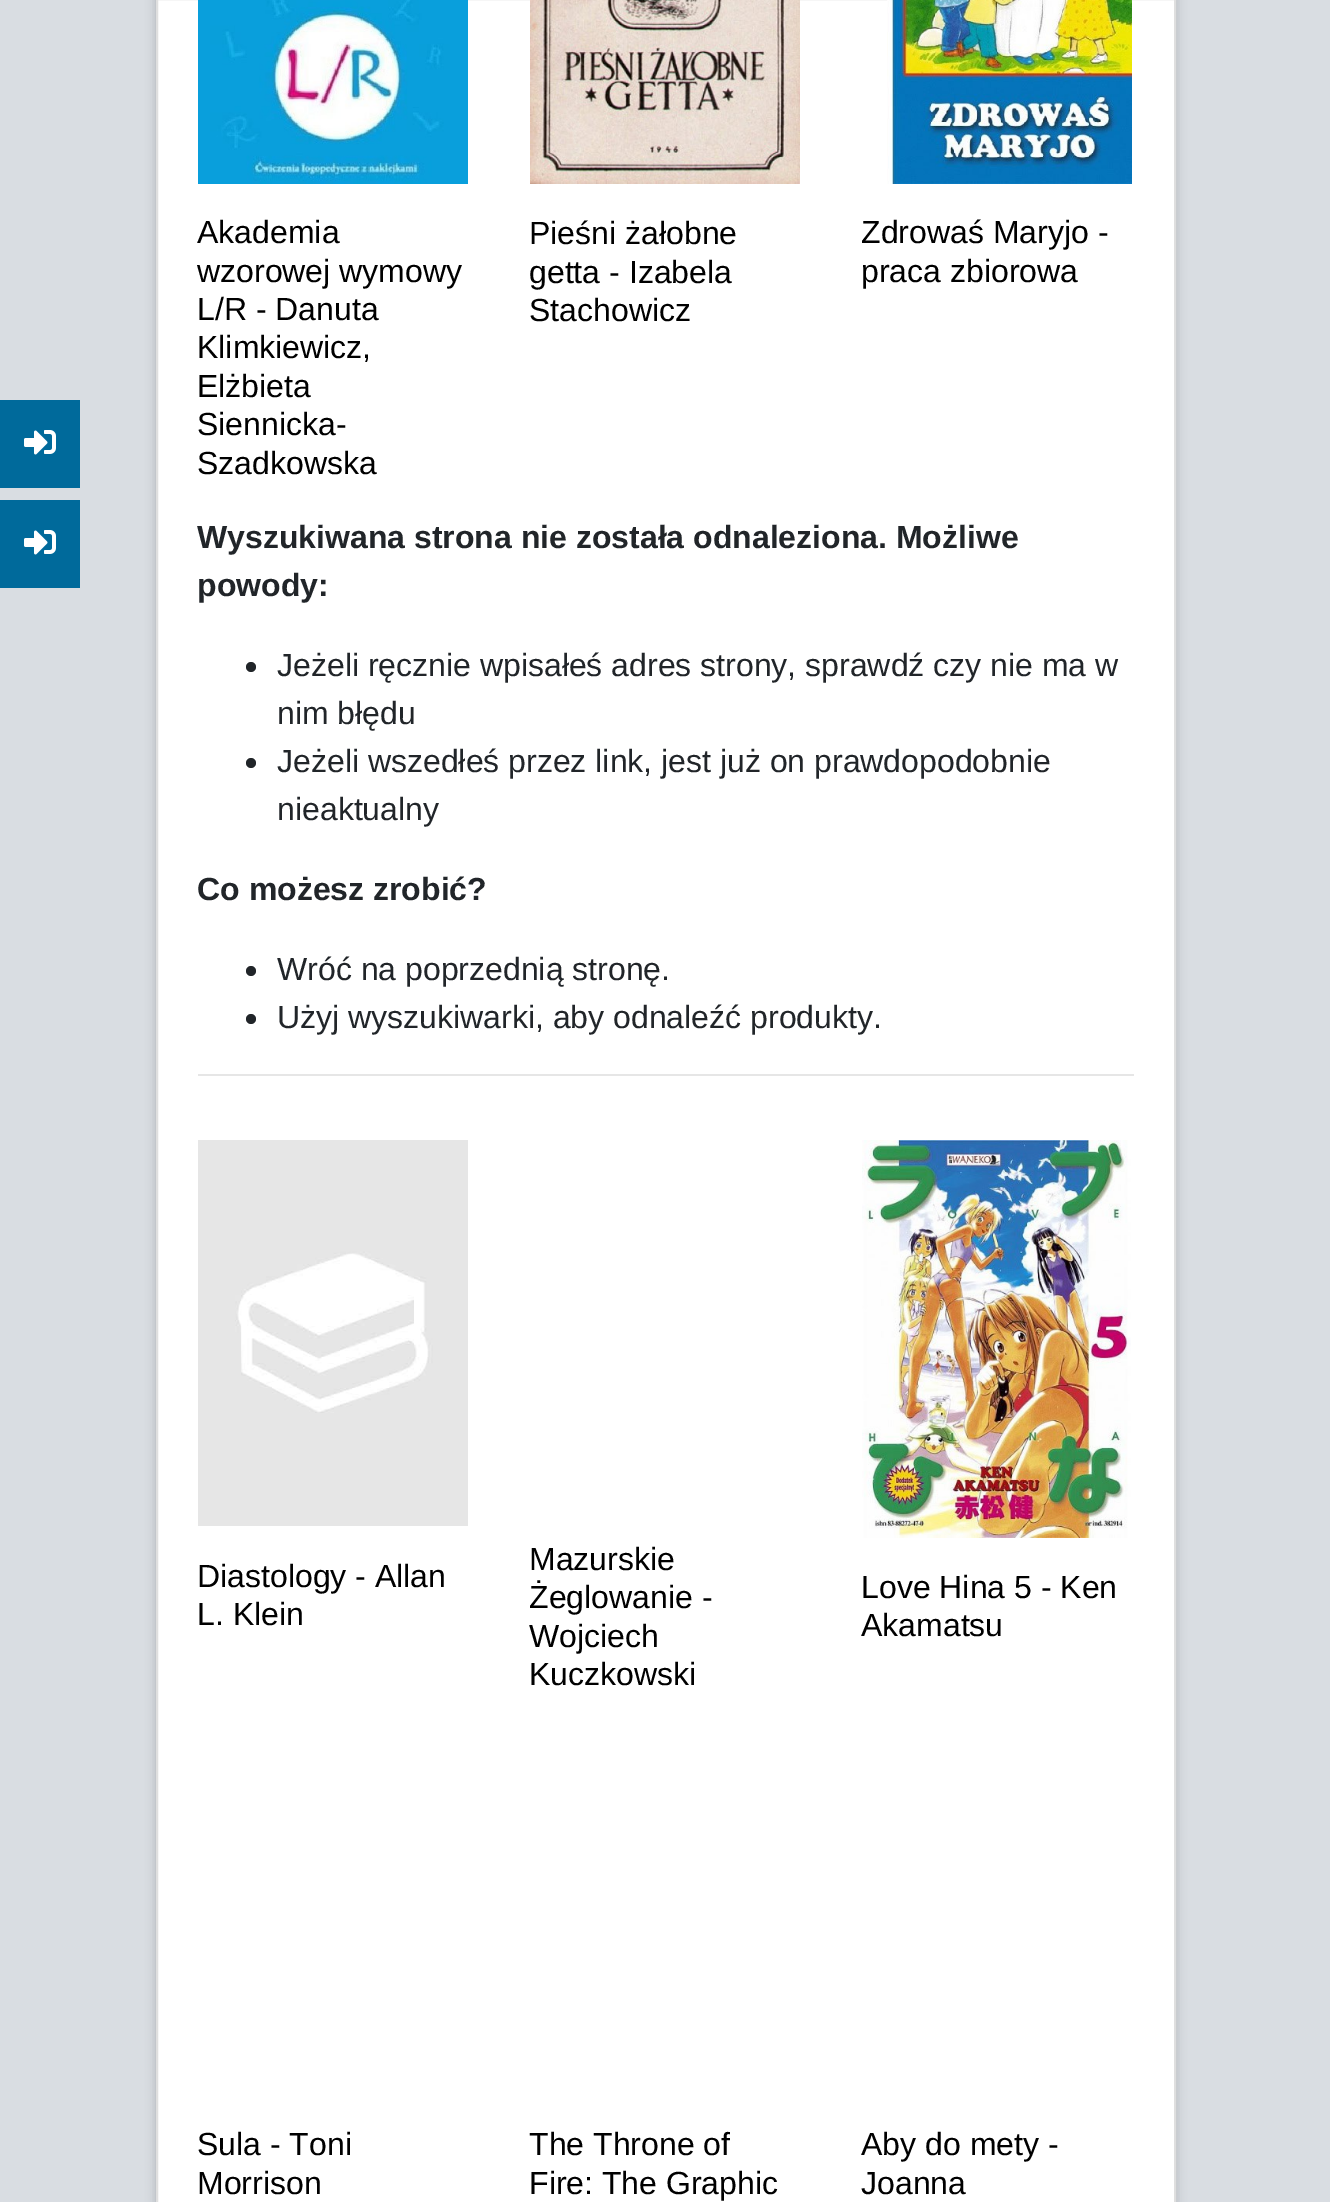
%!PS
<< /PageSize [1330 2202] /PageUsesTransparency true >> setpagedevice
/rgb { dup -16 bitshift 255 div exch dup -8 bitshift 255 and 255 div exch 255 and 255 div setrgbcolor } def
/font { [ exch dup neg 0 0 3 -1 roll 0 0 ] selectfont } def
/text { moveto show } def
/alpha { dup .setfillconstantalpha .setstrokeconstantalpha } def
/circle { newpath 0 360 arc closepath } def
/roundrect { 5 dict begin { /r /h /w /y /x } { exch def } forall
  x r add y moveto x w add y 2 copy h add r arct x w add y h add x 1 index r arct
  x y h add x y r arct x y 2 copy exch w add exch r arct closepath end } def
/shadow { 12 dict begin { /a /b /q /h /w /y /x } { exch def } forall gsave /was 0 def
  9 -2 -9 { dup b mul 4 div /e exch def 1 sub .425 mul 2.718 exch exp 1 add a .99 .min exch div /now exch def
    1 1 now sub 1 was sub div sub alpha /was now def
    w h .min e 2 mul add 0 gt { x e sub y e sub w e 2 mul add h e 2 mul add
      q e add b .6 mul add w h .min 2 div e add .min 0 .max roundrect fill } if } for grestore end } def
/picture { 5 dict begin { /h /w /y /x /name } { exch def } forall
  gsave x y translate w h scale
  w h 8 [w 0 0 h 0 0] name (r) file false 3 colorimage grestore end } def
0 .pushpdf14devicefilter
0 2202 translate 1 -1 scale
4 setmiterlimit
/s1 { /LiberationSans-Regular 32 font 16#000000 rgb } def
/s2 { /LiberationSans-Bold 32 font 16#212529 rgb } def
/s3 { /LiberationSans-Regular 32 font 16#212529 rgb } def
16#D9DDE2 rgb
0 0 1330 2202 rectfill
16#006A9B rgb
0 400 80 88 rectfill
(pic1.raw) 24 430 32 25 picture
16#000000 rgb
156 -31 1020 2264 16 5 0.2 shadow
16#FFFFFF rgb
157 -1 moveto 1175 -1 lineto 1175 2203 lineto 157 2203 lineto closepath gsave fill grestore
16#DFDFDF rgb
2 setlinewidth
stroke
(pic2.raw) 198 0 270 184 picture
s1
(Akademia) 197 243 text
(wzorowej wymowy) 197 282 text
(L/R - Danuta) 197 320 text
(Klimkiewicz,) 197 358 text
(Elżbieta) 197 397 text
(Siennicka-) 197 435 text
(Szadkowska) 197 474 text
(pic3.raw) 530 0 270 184 picture
(Pieśni żałobne) 529 244 text
(getta - Izabela) 529 283 text
(Stachowicz) 529 321 text
(pic4.raw) 887 0 245 184 picture
(Zdrowaś Maryjo -) 861 243 text
(praca zbiorowa) 861 282 text
s2
(Wyszukiwana strona nie została odnaleziona. Możliwe) 197 548 text
(powody:) 197 596 text
251 667 5 circle fill
s3
(Jeżeli ręcznie wpisałeś adres strony, sprawdź czy nie ma w) 277 676 text
(nim błędu) 277 724 text
251 763 5 circle fill
(Jeżeli wszedłeś przez link, jest już on prawdopodobnie) 277 772 text
(nieaktualny) 277 820 text
s2
(Co możesz zrobić?) 197 900 text
251 971 5 circle fill
s3
(Wróć na poprzednią stronę.) 277 980 text
251 1019 5 circle fill
(Użyj wyszukiwarki, aby odnaleźć produkty.) 277 1028 text
16#E6E6E6 rgb
198 1074 936 2 rectfill
(pic5.raw) 198 1140 270 386 picture
s1
(Diastology - Allan) 197 1587 text
(L. Klein) 197 1625 text
(Mazurskie) 529 1570 text
(Żeglowanie -) 529 1608 text
(Wojciech) 529 1647 text
(Kuczkowski) 529 1685 text
(pic6.raw) 862 1140 269 398 picture
(Love Hina 5 - Ken) 861 1598 text
(Akamatsu) 861 1636 text
(Sula - Toni) 197 2155 text
(Morrison) 197 2194 text
(The Throne of) 529 2155 text
(Fire: The Graphic) 529 2194 text
(Aby do mety -) 861 2155 text
(Joanna) 861 2194 text
16#006A9B rgb
0 500 80 88 rectfill
(pic1.raw) 24 530 32 25 picture
.poppdf14devicefilter showpage
